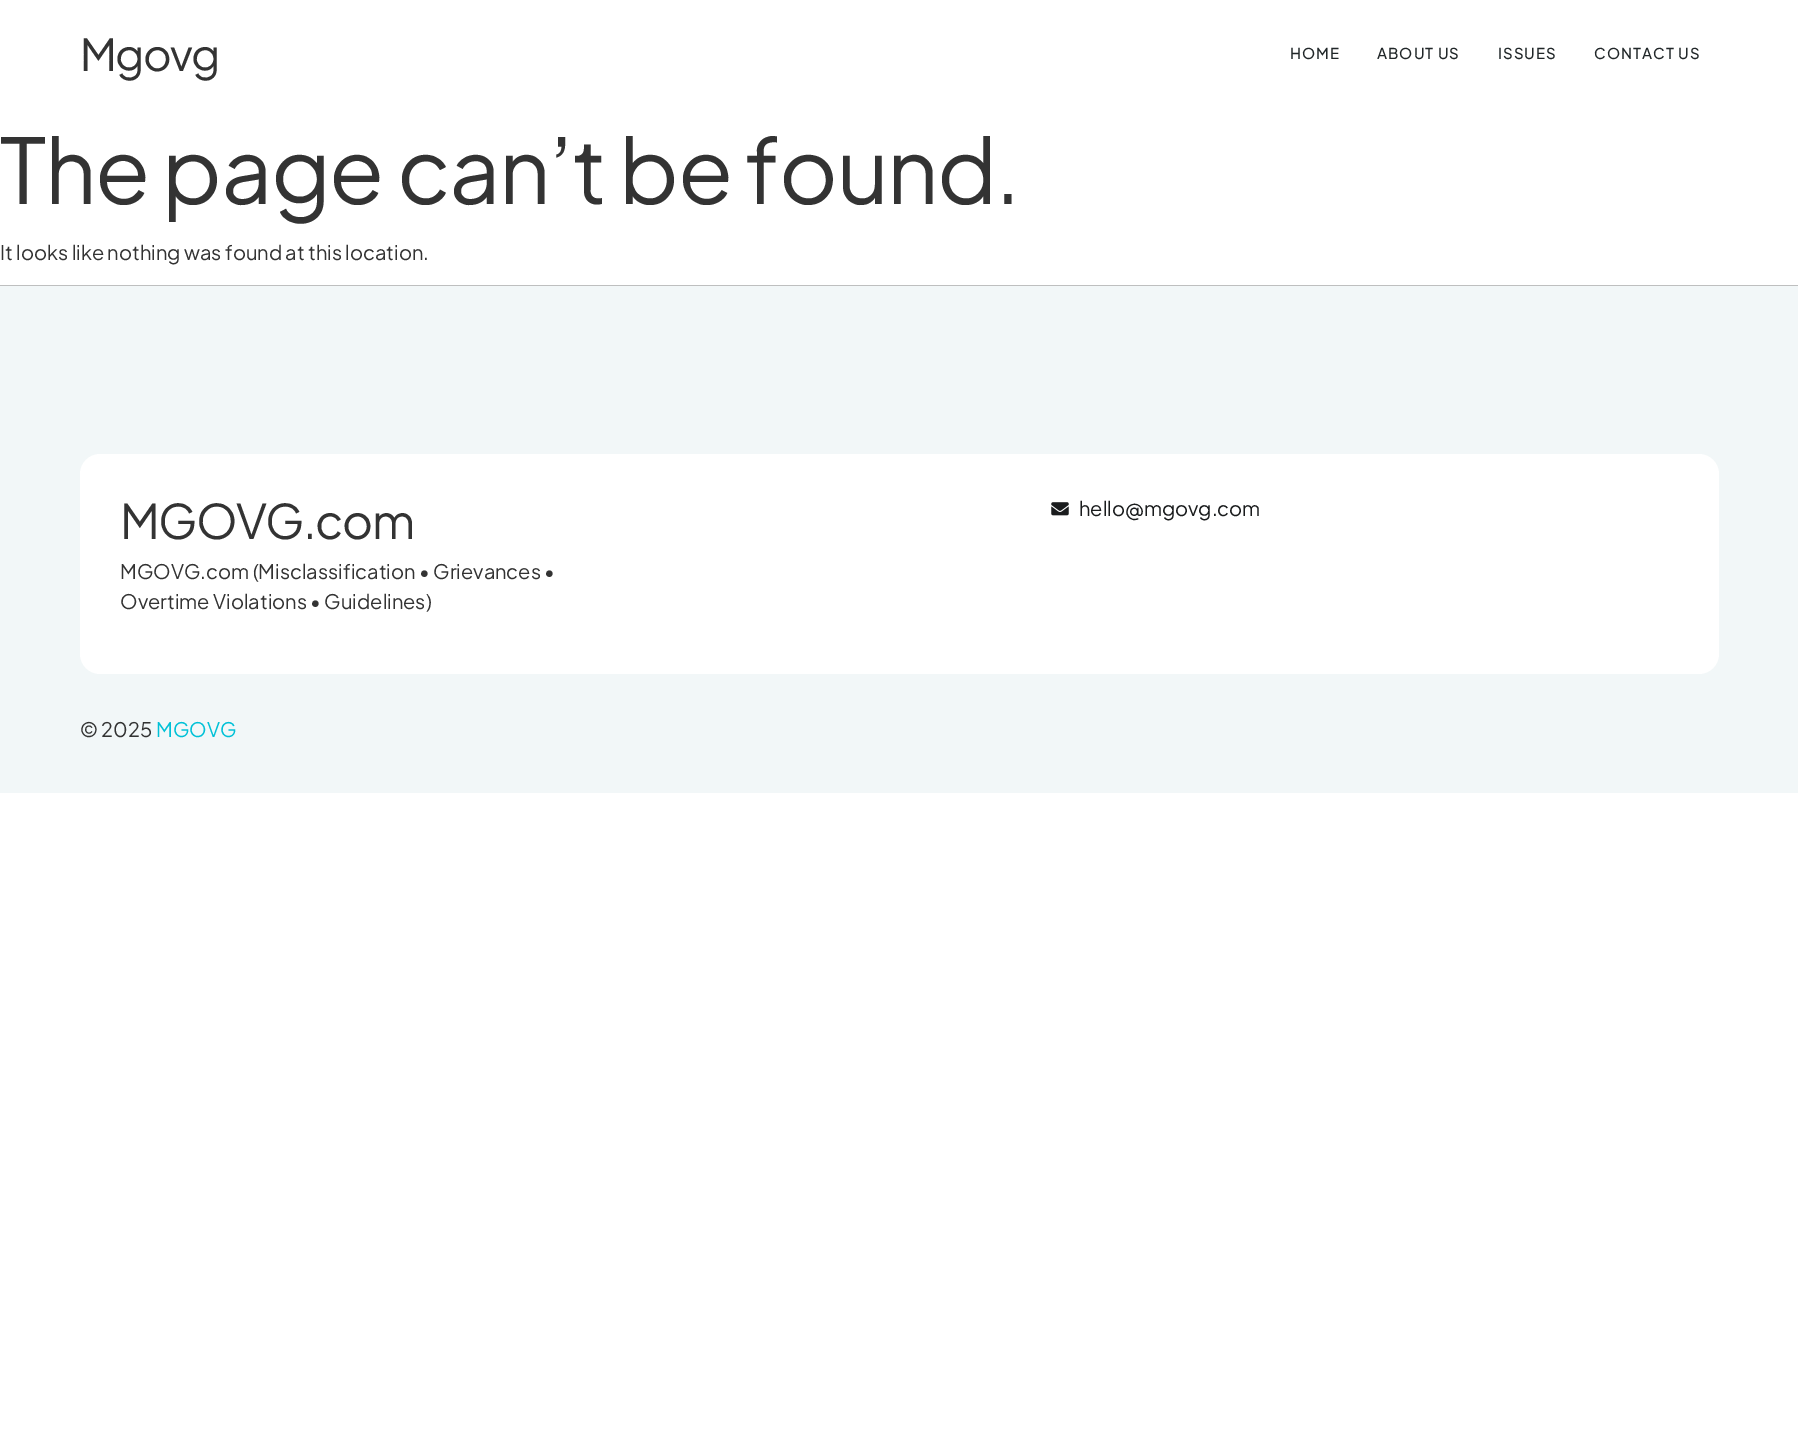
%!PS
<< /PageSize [1798 1440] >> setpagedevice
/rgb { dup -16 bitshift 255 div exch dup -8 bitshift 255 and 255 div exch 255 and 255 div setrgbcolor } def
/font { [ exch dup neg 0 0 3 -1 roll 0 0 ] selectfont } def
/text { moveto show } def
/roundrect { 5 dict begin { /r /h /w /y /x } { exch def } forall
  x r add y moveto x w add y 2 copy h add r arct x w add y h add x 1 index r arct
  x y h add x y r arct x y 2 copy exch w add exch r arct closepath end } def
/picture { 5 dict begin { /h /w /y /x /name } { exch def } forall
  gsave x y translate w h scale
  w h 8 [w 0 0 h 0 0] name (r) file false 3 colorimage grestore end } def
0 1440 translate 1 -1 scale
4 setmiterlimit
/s1 { /PlusJakartaSans-Regular 20 font 16#333333 rgb } def
/s2 { /PlusJakartaSans-Regular 20 font 16#1A1C1D rgb } def
/s3 { /PlusJakartaSans-Regular 20 font 16#00C1D7 rgb } def
16#FFFFFF rgb
0 0 1798 1440 rectfill
/PlusJakartaSans-Regular 44 font
16#333333 rgb
80 71 moveto -1.5 0 (Mgovg) ashow
/PlusJakartaSans-Medium 15 font
16#212729 rgb
1290 59 moveto 1 0 (HOME) ashow
1377 59 moveto 1 0 (ABOUT US) ashow
1498 59 moveto 1 0 (ISSUES) ashow
1594 59 moveto 1 0 (CONTACT US) ashow
/PlusJakartaSans-Regular 90 font
16#333333 rgb
0 204 moveto -1.5 0 (The page can’t be found.) ashow
s1
(It looks like nothing was found at this location.) 0 260 text
16#F2F7F8 rgb
0 286 1798 507 rectfill
16#BEBFBF rgb
0 285 1798 1 rectfill
16#FFFFFF rgb
80 454 1639 220 20 roundrect fill
/PlusJakartaSans-Regular 47.5 font
16#333333 rgb
120 539 moveto -1.5 0 (MGOVG.com) ashow
s1
(MGOVG.com \(Misclassification • Grievances •) 120 579 text
(Overtime Violations • Guidelines\)) 120 609 text
(pic1.raw) 1051 502 18 14 picture
s2
(hello@mgovg.com) 1079 516 text
s1
(© 2025) 80 737 text
s3
(MGOVG) 156 737 text
showpage
